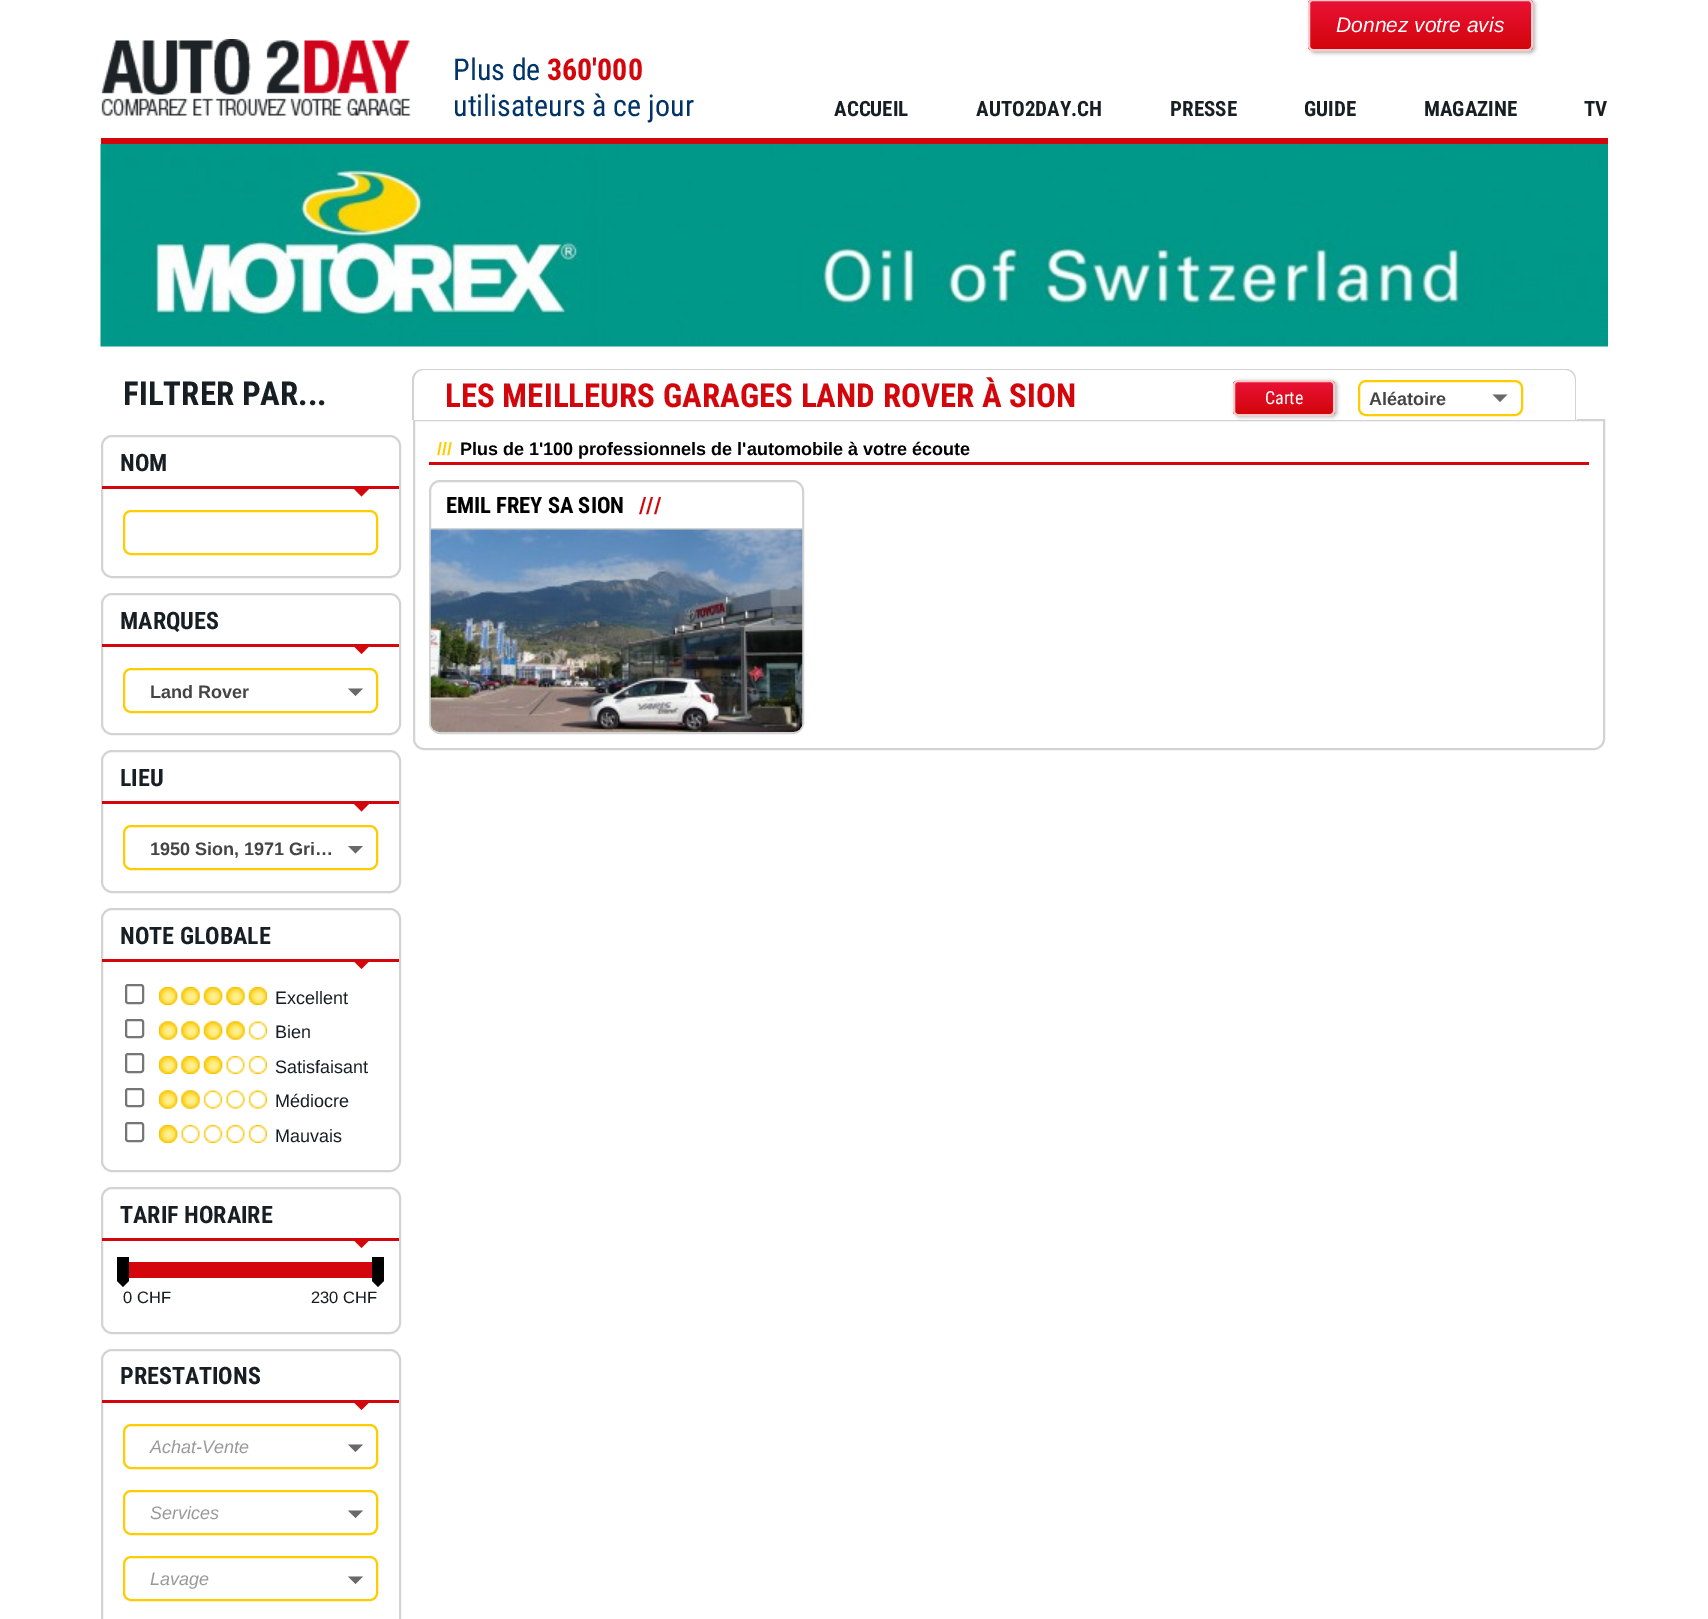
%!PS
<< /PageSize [1708 1619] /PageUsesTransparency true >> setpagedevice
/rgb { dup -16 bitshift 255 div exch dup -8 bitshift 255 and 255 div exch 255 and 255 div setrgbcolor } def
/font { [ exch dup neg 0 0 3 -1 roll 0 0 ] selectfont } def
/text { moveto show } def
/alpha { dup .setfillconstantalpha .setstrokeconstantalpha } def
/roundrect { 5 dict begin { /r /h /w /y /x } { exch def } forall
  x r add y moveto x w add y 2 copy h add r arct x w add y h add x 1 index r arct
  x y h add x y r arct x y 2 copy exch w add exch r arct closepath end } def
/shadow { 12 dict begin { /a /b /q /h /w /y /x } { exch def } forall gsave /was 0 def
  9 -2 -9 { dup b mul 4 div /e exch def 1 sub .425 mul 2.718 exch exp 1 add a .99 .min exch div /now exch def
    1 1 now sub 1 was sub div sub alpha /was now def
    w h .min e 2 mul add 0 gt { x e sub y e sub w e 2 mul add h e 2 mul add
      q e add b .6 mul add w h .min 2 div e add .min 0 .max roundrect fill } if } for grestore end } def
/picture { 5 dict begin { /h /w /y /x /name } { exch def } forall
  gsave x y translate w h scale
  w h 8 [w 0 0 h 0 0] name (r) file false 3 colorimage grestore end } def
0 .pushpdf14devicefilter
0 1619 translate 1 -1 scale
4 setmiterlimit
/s1 { /LiberationSans-Italic 21 font 16#FFFFFF rgb } def
/s2 { /RobotoCondensed-Regular 30 font 16#003468 rgb } def
/s3 { /RobotoCondensed-Bold 30 font 16#D3060C rgb } def
/s4 { /RobotoCondensed-Bold 21 font 16#171E24 rgb } def
/s5 { /RobotoCondensed-Bold 33 font 16#171E24 rgb } def
/s6 { /RobotoCondensed-Bold 24 font 16#171E24 rgb } def
/s7 { /LiberationSans-Bold 18 font 16#444444 rgb } def
/s8 { /LiberationSans-Regular 18 font 16#171E24 rgb } def
/s9 { /LiberationSans-Regular 16.5 font 16#171E24 rgb } def
/s10 { /LiberationSans-Italic 18 font 16#999999 rgb } def
/s11 { /RobotoCondensed-Bold 33 font 16#D3060C rgb } def
/s12 { /RobotoCondensed-Regular 18 font 16#FFFFFF rgb } def
/s13 { /LiberationSans-Bold 18 font 16#FFCC00 rgb } def
/s14 { /LiberationSans-Bold 18 font 16#000000 rgb } def
/s15 { /RobotoCondensed-Bold 22.5 font 16#000000 rgb } def
/s16 { /RobotoCondensed-Bold 22.5 font 16#D3060C rgb } def
16#FFFFFF rgb
0 0 1708 1619 rectfill
16#D3060C rgb
101 138 1507 6 rectfill
16#000000 rgb
1310 0 225 53 5 2 0.3 shadow
gsave
1308 -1 225 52 5 roundrect clip newpath
gsave 1308 0 moveto 1533 0 lineto 1533 50 lineto 1308 50 lineto closepath clip newpath
<< /ShadingType 2 /ColorSpace /DeviceRGB /Coords [1421 50 1421 0] /Extend [true true] /Function << /FunctionType 2 /Domain [0 1] /C0 [0.824 0.02 0.039] /C1 [0.918 0.071 0.216] /N 1 >> >> shfill grestore
grestore
16#FFCBCB rgb
2 setlinewidth
1309 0 223 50 4 roundrect stroke
s1
(Donnez votre avis) 1336 32 text
(pic1.raw) 101 39 310 77 picture
s2
(Plus de) 453 80 text
s3
(360'000) 547 80 text
s2
(utilisateurs à ce jour) 453 116 text
s4
(ACCUEIL) 834 116 text
(AUTO2DAY.CH) 976 116 text
(PRESSE) 1170 116 text
(GUIDE) 1304 116 text
(MAGAZINE) 1424 116 text
(TV) 1584 116 text
(pic2.raw) 100 144 1508 203 picture
s5
(FILTRER PAR...) 123 405 text
16#D3D3D3 rgb
102 436 298 141 10 roundrect stroke
16#D3060C rgb
102 486 297 3 rectfill
s6
(NOM) 120 471 text
16#D3060C rgb
354 489 moveto 369 489 lineto 361.5 496.5 lineto closepath fill
16#FFCC00 rgb
124 511 253 43 7 roundrect stroke
16#D3D3D3 rgb
102 594 298 140 10 roundrect stroke
16#D3060C rgb
102 644 297 3 rectfill
s6
(MARQUES) 120 629 text
16#D3060C rgb
354 646.5 moveto 369 646.5 lineto 361.5 654 lineto closepath fill
16#FFCC00 rgb
124 669 253 43 7 roundrect stroke
s7
(Land Rover) 150 698 text
16#696969 rgb
348 688.5 moveto 363 688.5 lineto 355.5 696 lineto closepath fill
16#D3D3D3 rgb
102 751 298 141 10 roundrect stroke
16#D3060C rgb
102 801 297 3 rectfill
s6
(LIEU) 120 786 text
16#D3060C rgb
354 804 moveto 369 804 lineto 361.5 811.5 lineto closepath fill
16#FFCC00 rgb
124 826 253 43 7 roundrect stroke
s7
(1950 Sion, 1971 Gri…) 150 855 text
16#696969 rgb
348 846 moveto 363 846 lineto 355.5 853.5 lineto closepath fill
16#D3D3D3 rgb
102 909 298 262 10 roundrect stroke
16#D3060C rgb
102 959 297 3 rectfill
s6
(NOTE GLOBALE) 120 944 text
16#D3060C rgb
354 961.5 moveto 369 961.5 lineto 361.5 969 lineto closepath fill
16#767676 rgb
126 985 17 18 2 roundrect stroke
(pic3.raw) 159 987 108 18 picture
(pic4.raw) 159 987 108 18 picture
s8
(Excellent) 275 1004 text
16#767676 rgb
126 1020 17 17 2 roundrect stroke
(pic5.raw) 159 1021 108 19 picture
(pic6.raw) 159 1021 86 19 picture
s8
(Bien) 275 1038 text
16#767676 rgb
126 1054 17 18 2 roundrect stroke
(pic3.raw) 159 1056 108 18 picture
(pic7.raw) 159 1056 64 18 picture
s8
(Satisfaisant) 275 1073 text
16#767676 rgb
126 1089 17 17 2 roundrect stroke
(pic5.raw) 159 1090 108 19 picture
(pic8.raw) 159 1090 41 19 picture
s8
(Médiocre) 275 1107 text
16#767676 rgb
126 1123 17 18 2 roundrect stroke
(pic3.raw) 159 1125 108 18 picture
(pic9.raw) 159 1125 19 18 picture
s8
(Mauvais) 275 1142 text
16#D3D3D3 rgb
102 1188 298 145 10 roundrect stroke
16#D3060C rgb
102 1238 297 3 rectfill
s6
(TARIF HORAIRE) 120 1223 text
16#D3060C rgb
354 1240.5 moveto 369 1240.5 lineto 361.5 1248 lineto closepath fill
16#000000 rgb
117 1257 12 24 rectfill
117 1281 moveto 129 1281 lineto 123 1287 lineto closepath fill
16#D3060C rgb
129 1262 243 16 rectfill
16#000000 rgb
372 1257 12 24 rectfill
372 1281 moveto 384 1281 lineto 378 1287 lineto closepath fill
s9
(0 CHF) 123 1303 text
(230 CHF) 311 1303 text
16#D3D3D3 rgb
102 1350 298 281 10 roundrect stroke
16#D3060C rgb
102 1400 297 3 rectfill
s6
(PRESTATIONS) 120 1384 text
16#D3060C rgb
354 1402.5 moveto 369 1402.5 lineto 361.5 1410 lineto closepath fill
16#FFCC00 rgb
124 1425 253 43 7 roundrect stroke
s10
(Achat-Vente) 150 1453 text
16#696969 rgb
348 1444.5 moveto 363 1444.5 lineto 355.5 1452 lineto closepath fill
16#FFCC00 rgb
124 1491 253 43 7 roundrect stroke
s10
(Services) 150 1519 text
16#696969 rgb
348 1510.5 moveto 363 1510.5 lineto 355.5 1518 lineto closepath fill
16#FFCC00 rgb
124 1557 253 43 7 roundrect stroke
s10
(Lavage) 150 1585 text
16#696969 rgb
348 1576.5 moveto 363 1576.5 lineto 355.5 1584 lineto closepath fill
16#D3D3D3 rgb
414 420 moveto 1604 420 lineto 1604 739 lineto 1604 744.5 1599.5 749 1594 749 curveto 424 749 lineto 418.5 749 414 744.5 414 739 curveto closepath stroke
16#FFFFFF rgb
424 369 moveto 1566 369 lineto 1572 369 1577 374 1577 380 curveto 1577 420 lineto 413 420 lineto 413 380 lineto 413 374 418 369 424 369 curveto closepath fill
16#D3D3D3 rgb
423 369 moveto 1566 369 lineto 1572 369 1576 374 1576 380 curveto 1576 420 lineto 412 420 lineto 412 380 lineto 412 374 417 369 423 369 curveto closepath 423 370 moveto 1566 370 lineto 1571 370 1575 375 1575 380 curveto 1575 420 lineto 414 420 lineto 414 380 lineto 414 375 418 370 423 370 curveto closepath eofill
s11
(LES MEILLEURS GARAGES LAND ROVER À SION) 445 407 text
16#000000 rgb
1235 381 102 36 5 2 0.3 shadow
gsave
1233 380 102 36 5 roundrect clip newpath
gsave 1233 381 moveto 1335 381 lineto 1335 414 lineto 1233 414 lineto closepath clip newpath
<< /ShadingType 2 /ColorSpace /DeviceRGB /Coords [1284 414 1284 381] /Extend [true true] /Function << /FunctionType 2 /Domain [0 1] /C0 [0.824 0.02 0.039] /C1 [0.918 0.071 0.216] /N 1 >> >> shfill grestore
grestore
16#FFCBCB rgb
1234 381 100 34 4 roundrect stroke
s12
(Carte) 1265 404 text
16#FFCC00 rgb
1359 381 163 34 7 roundrect stroke
s7
(Aléatoire) 1369 405 text
16#696969 rgb
1492.5 394.5 moveto 1507.5 394.5 lineto 1500 402 lineto closepath fill
16#D3060C rgb
429 462 1160 3 rectfill
s13
(///) 437 455 text
s14
(Plus de 1'100 professionnels de l'automobile à votre écoute) 460 455 text
16#D3D3D3 rgb
430 481 373 252 10 roundrect stroke
431 528 372 2 rectfill
s15
(EMIL FREY SA SION) 446 513 text
s16
(///) 639 513 text
(pic10.raw) 430 529 373 203 picture
.poppdf14devicefilter showpage
